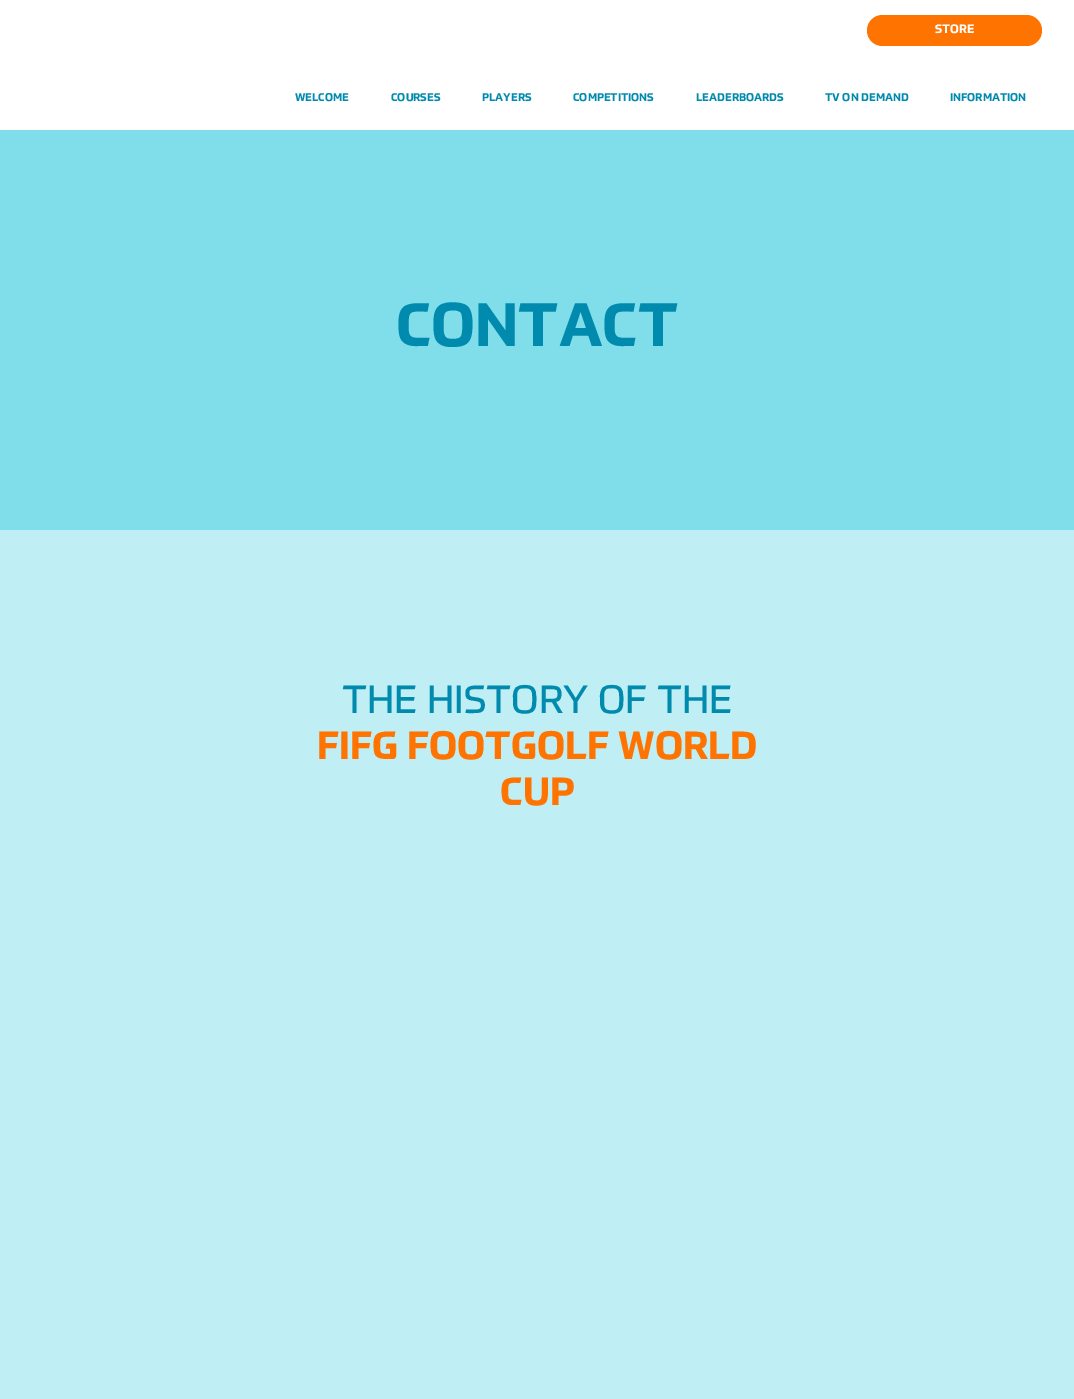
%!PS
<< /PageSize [1074 1399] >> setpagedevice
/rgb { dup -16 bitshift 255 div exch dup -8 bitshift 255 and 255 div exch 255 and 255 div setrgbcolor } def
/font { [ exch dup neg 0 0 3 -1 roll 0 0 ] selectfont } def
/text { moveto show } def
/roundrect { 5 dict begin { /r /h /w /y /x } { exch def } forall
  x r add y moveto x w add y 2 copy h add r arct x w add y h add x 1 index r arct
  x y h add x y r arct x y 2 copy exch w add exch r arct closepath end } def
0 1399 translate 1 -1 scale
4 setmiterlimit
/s1 { /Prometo-Bold 12 font 16#FFFFFF rgb } def
/s2 { /Prometo-Bold 11 font 16#008AAD rgb } def
/s3 { /Prometo-Bold 60 font 16#008AAD rgb } def
/s4 { /Prometo-Regular 38.5 font 16#008AAD rgb } def
/s5 { /Prometo-Bold 38.5 font 16#FF7300 rgb } def
16#FFFFFF rgb
0 0 1074 1399 rectfill
16#FF7300 rgb
867 15 175 31 15.5 roundrect fill
s1
(STORE) 935 33 text
s2
(WELCOME) 295 101 text
(COURSES) 391 101 text
(PLAYERS) 482 101 text
(COMPETITIONS) 573 101 text
(LEADERBOARDS) 696 101 text
(TV ON DEMAND) 825 101 text
(INFORMATION) 950 101 text
16#80DEEB rgb
0 130 1074 400 rectfill
s3
(CONTACT) 396 346 text
16#BFEFF5 rgb
0 530 1074 869 rectfill
s4
(THE HISTORY OF THE) 342 713 text
s5
(FIFG FOOTGOLF WORLD) 317 759 text
(CUP) 500 805 text
showpage
